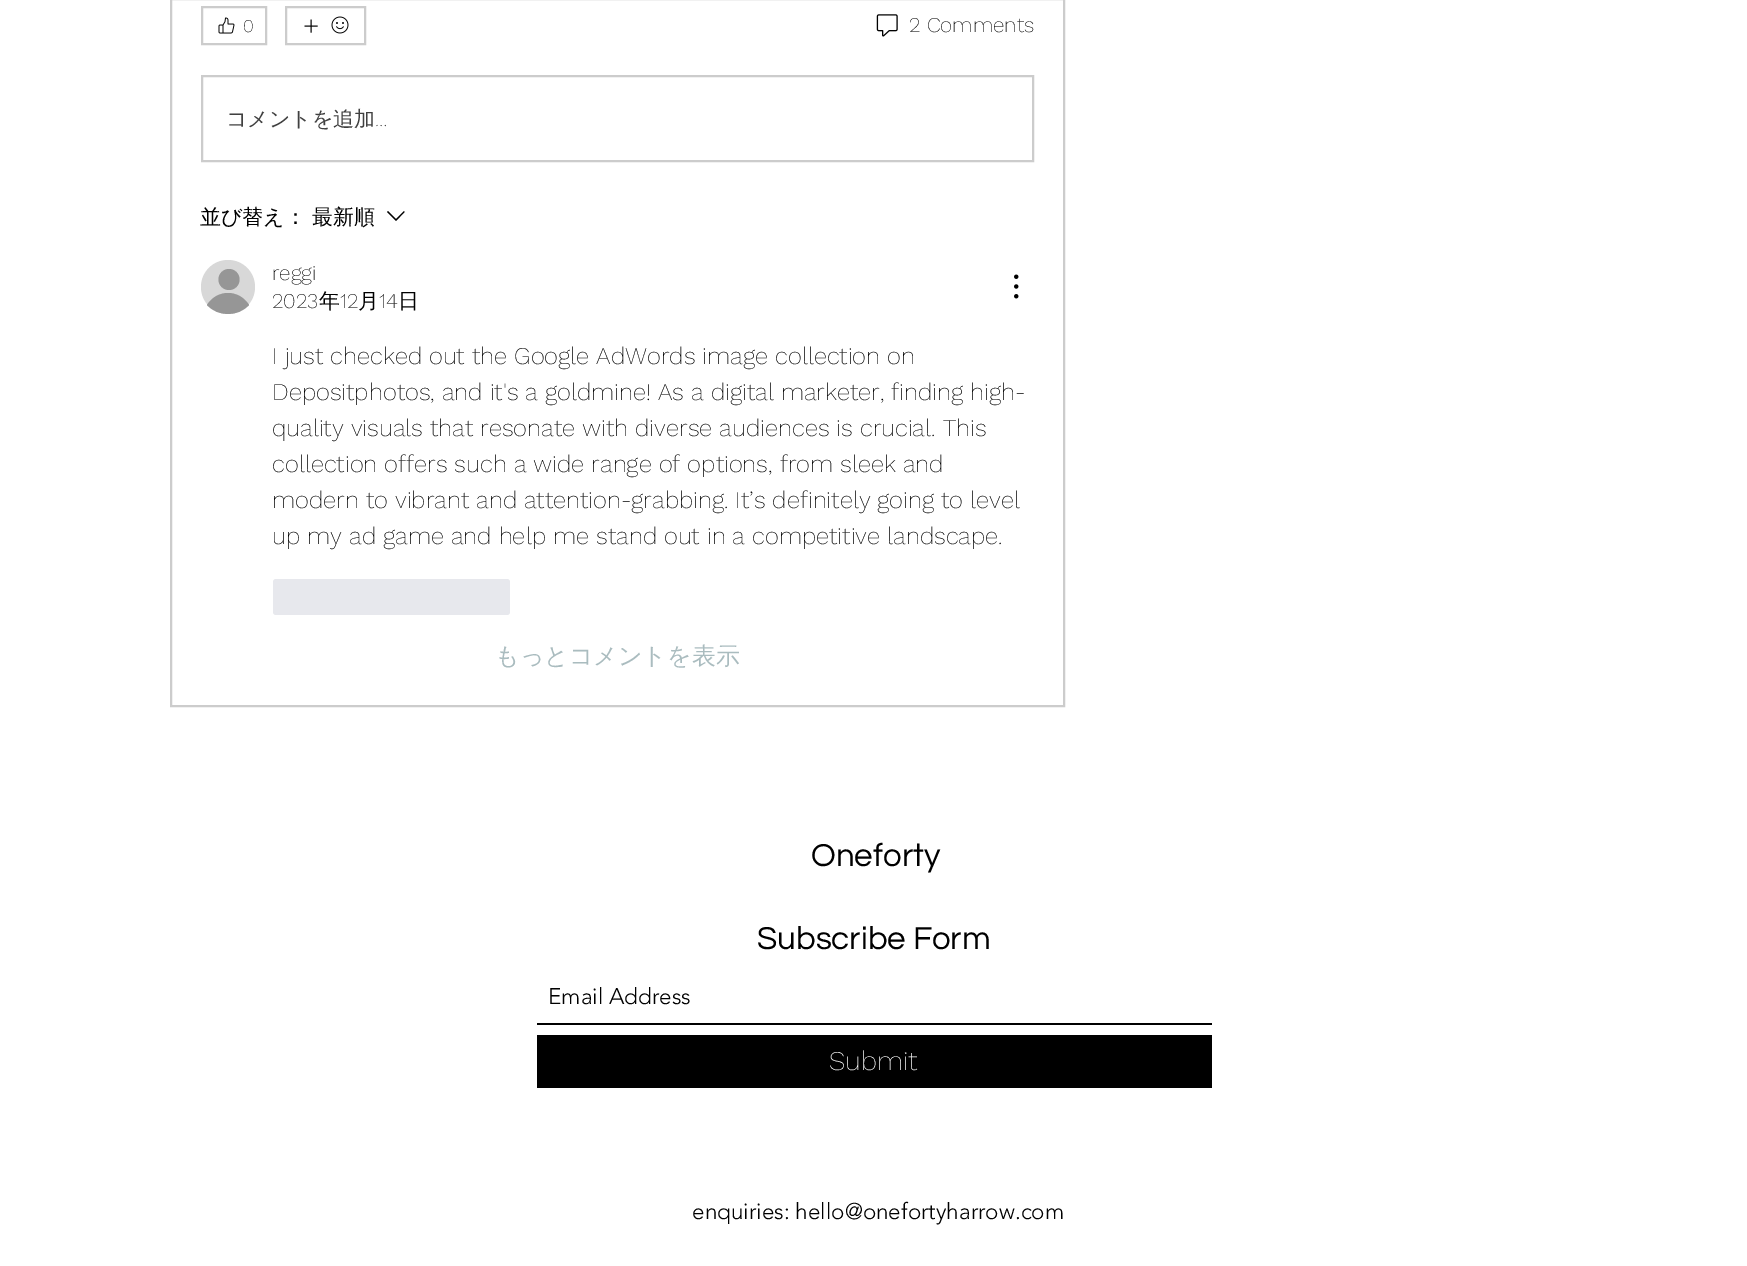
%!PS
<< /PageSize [1747 1266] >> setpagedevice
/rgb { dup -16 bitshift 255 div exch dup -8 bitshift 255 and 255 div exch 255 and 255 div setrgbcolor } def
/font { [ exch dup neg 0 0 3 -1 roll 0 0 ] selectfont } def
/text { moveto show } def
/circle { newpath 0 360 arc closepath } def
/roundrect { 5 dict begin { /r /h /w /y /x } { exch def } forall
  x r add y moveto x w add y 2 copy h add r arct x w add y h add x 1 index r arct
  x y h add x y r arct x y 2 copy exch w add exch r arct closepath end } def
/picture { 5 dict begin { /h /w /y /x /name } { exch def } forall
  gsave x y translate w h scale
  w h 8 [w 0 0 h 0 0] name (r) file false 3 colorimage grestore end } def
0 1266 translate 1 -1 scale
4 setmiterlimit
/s1 { /WorkSans-ExtraLight 18 font 16#000000 rgb } def
/s2 { /WorkSans-ExtraLight 21 font 16#000000 rgb } def
/s3 { /WenQuanYiZenHei-Medium 21 font 16#404040 rgb } def
/s4 { /WorkSans-ExtraLight 21 font 16#404040 rgb } def
/s5 { /WenQuanYiZenHei-Medium 21 font 16#000000 rgb } def
/s6 { /WorkSans-ExtraLight 24 font 16#000000 rgb } def
/s7 { /WenQuanYiZenHei-Medium 24 font 16#AABCBF rgb } def
/s8 { /Questrial-Regular 33 font 16#000000 rgb } def
/s9 { /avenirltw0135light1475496-Light 22.5 font 16#000000 rgb } def
/s10 { /WorkSans-ExtraLight 27 font 16#FFFFFF rgb } def
16#FFFFFF rgb
0 0 1747 1266 rectfill
16#CCCCCC rgb
2 setlinewidth
171 -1 893 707 rectstroke
202 7 64 37 rectstroke
(pic1.raw) 218 17 17 17 picture
s1
(0) 243 32 text
16#CCCCCC rgb
286 7 79 37 rectstroke
(pic2.raw) 304 19 14 14 picture
(pic3.raw) 331 16 18 18 picture
(pic4.raw) 876 14 22 23 picture
s2
(2 Comments) 909 32 text
16#CCCCCC rgb
202 76 831 85 rectstroke
s3
(コメントを追加) 226 126 text
s4
(…) 375 126 text
s5
(並び替え： 最新順) 200 224 text
404 211 moveto 404.5 212 lineto 396 221 lineto 387 212 lineto 388 211 lineto 396 219 lineto closepath eofill
16#D8D8D8 rgb
228 287 27 circle fill
16#969696 rgb
229 279.5 10.5 circle fill
249 305 moveto 238 317 218 317 207 305 curveto 217 289 239 289 249 305 curveto closepath fill
s2
(reggi) 272 280 text
(2023) 272 308 text
s5
(年) 319 308 text
s2
(12) 340 308 text
s5
(月) 358 308 text
s2
(14) 379 308 text
s5
(日) 398 308 text
(pic5.raw) 1014 274 5 25 picture
s6
(I just checked out the Google AdWords image collection on) 272 364 text
(Depositphotos, and it's a goldmine! As a digital marketer, finding high-) 272 400 text
(quality visuals that resonate with diverse audiences is crucial. This) 272 436 text
(collection offers such a wide range of options, from sleek and) 272 472 text
(modern to vibrant and attention-grabbing. It’s definitely going to level) 272 508 text
(up my ad game and help me stand out in a competitive landscape.) 272 544 text
16#E7E8ED rgb
273 579 237 36 3 roundrect fill
s7
(もっとコメントを表示) 495 664 text
s8
(Oneforty) 811 866 text
(Subscribe Form) 757 949 text
537 1023 675 2 rectfill
s9
(Email Address) 548 1004 text
537 1035 675 53 rectfill
s10
(Submit) 829 1070 text
s9
(enquiries: hello@onefortyharrow.com) 692 1219 text
showpage
